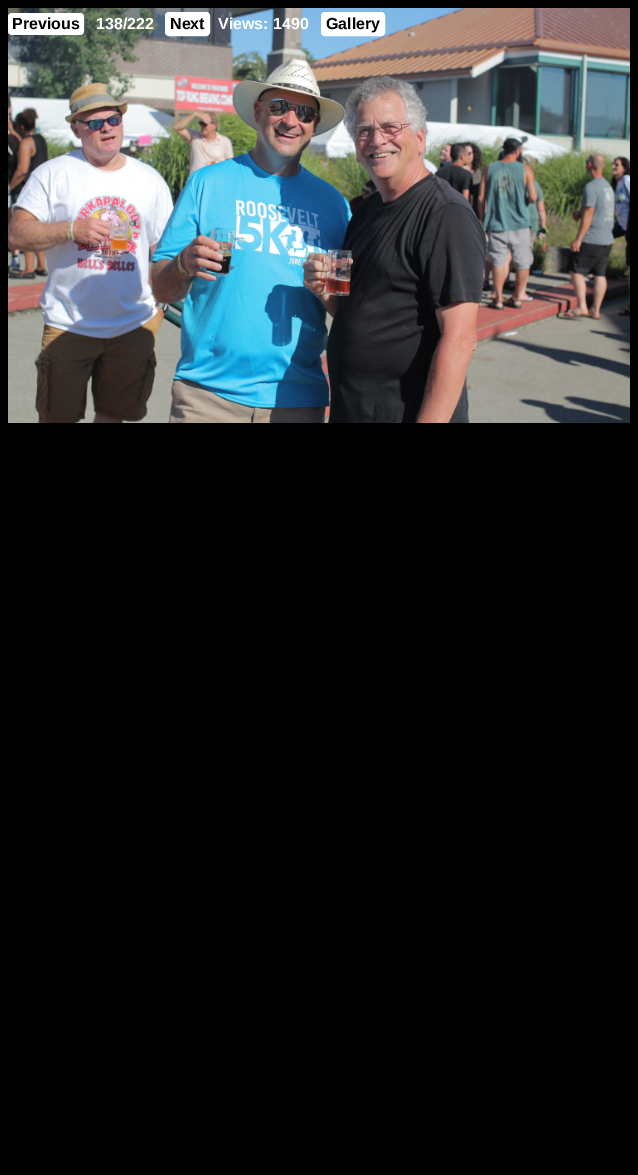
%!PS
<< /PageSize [638 1175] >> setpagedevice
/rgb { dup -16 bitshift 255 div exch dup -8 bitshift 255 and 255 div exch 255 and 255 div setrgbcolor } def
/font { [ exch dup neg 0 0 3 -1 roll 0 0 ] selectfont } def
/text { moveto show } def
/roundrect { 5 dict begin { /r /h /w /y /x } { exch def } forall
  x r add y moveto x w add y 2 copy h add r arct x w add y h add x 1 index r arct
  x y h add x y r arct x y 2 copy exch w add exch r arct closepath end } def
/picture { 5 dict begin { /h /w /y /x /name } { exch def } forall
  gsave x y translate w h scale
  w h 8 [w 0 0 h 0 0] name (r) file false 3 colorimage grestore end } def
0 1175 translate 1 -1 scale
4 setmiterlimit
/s1 { /LiberationSans-Bold 16 font 16#000000 rgb } def
/s2 { /LiberationSans-Bold 16 font 16#FFFFFF rgb } def
16#000000 rgb
0 0 638 1175 rectfill
(pic1.raw) 8 8 622 415 picture
16#FFFFFF rgb
8 13 76 22 4 roundrect fill
s1
(Previous) 12 29 text
s2
(138/222) 96 29 text
165.5 12.5 44 23 3.5 roundrect gsave fill grestore
stroke
s1
(Next) 170 29 text
s2
(Views: 1490) 218 29 text
321.5 12.5 63 23 3.5 roundrect gsave fill grestore
stroke
s1
(Gallery) 326 29 text
showpage
